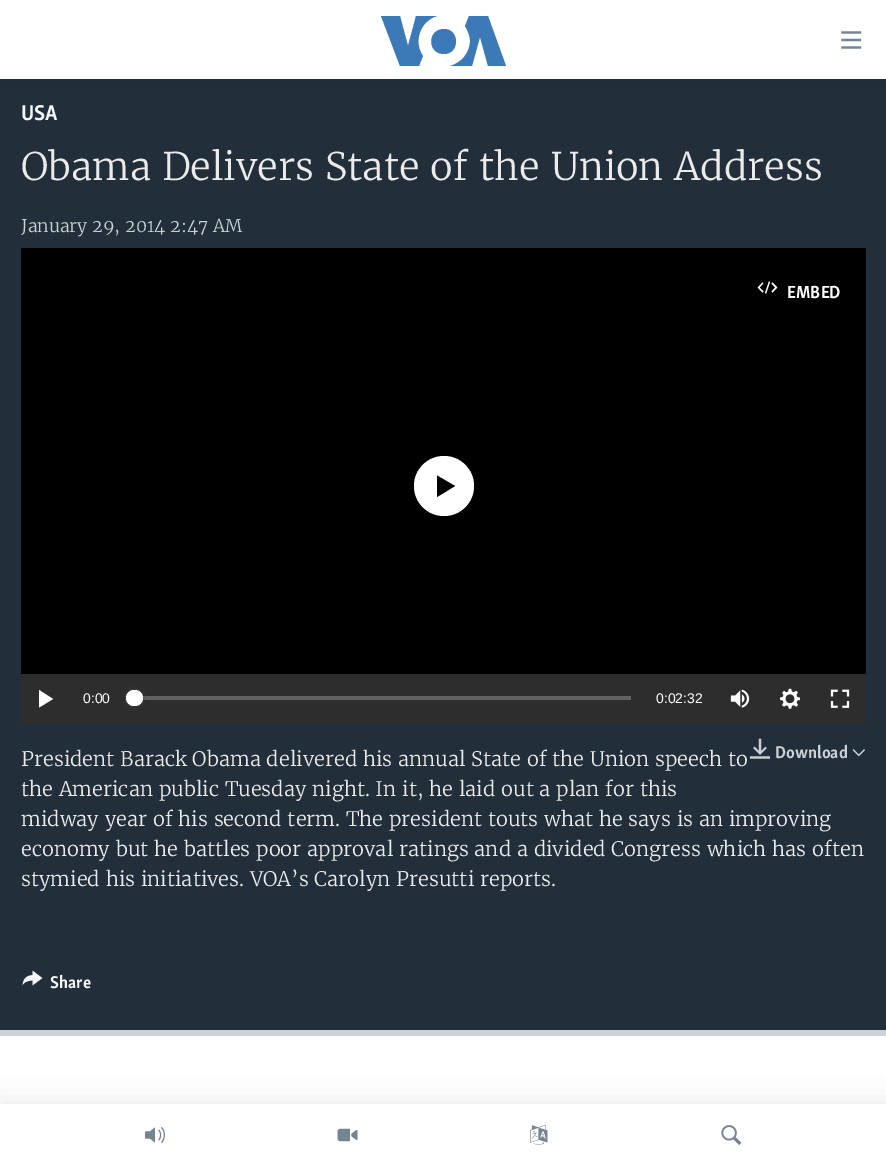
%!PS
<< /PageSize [886 1166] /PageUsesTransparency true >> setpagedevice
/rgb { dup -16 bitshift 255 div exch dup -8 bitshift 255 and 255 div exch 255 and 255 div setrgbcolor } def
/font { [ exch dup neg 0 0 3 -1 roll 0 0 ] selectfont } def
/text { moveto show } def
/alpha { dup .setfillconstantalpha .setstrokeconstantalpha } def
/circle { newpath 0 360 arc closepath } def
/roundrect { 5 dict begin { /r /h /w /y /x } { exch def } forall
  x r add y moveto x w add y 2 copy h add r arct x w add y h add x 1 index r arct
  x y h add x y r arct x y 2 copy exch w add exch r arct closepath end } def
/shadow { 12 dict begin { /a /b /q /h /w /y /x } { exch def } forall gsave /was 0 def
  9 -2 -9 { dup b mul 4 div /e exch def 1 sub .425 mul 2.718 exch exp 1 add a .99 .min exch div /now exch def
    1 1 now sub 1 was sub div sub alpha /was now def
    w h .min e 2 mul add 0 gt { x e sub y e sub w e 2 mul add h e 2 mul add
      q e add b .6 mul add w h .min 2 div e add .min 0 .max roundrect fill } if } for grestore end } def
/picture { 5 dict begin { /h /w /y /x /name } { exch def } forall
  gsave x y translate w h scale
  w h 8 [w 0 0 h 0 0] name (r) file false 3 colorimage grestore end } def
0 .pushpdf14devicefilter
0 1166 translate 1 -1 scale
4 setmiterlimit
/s1 { /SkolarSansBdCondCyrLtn-Bold 22 font 16#F6F7F8 rgb } def
/s2 { /Merriweather-Light 38 font 16#EBEBEB rgb } def
/s3 { /Merriweather-Light 17.5 font 16#CBD1D6 rgb } def
/s4 { /SkolarSansBdCondCyrLtn-Bold 18 font 16#FFFFFF rgb } def
/s5 { /LiberationSans-Regular 14 font 16#FFFFFF rgb } def
/s6 { /SkolarSansBdCondCyrLtn-Bold 17.5 font 16#CBD1D6 rgb } def
/s7 { /Merriweather-Light 20 font 16#EBEBEB rgb } def
/s8 { /SkolarSansBdCondCyrLtn-Bold 17.5 font 16#F6F7F8 rgb } def
16#FFFFFF rgb
0 0 886 1166 rectfill
16#222F3A rgb
0 79 886 951 rectfill
16#000000 rgb
0 0 886 79 0 12.5 0.1 shadow
16#FFFFFF rgb
0 0 886 79 rectfill
16#3B79B7 rgb
423 56 moveto 419 66 lineto 400 66 lineto 381 16 lineto 400 16 lineto 408 46 lineto 416 16 lineto 437 16 lineto 420 21 413 42 423 56 curveto closepath 444 29 moveto 427 29 427 54 444 54 curveto 460 54 460 29 444 29 curveto closepath 470 41 moveto 470 53 461 63 450 66 curveto 472 66 lineto 480 37 lineto 488 66 lineto 506 66 lineto 488 16 lineto 469 16 lineto 465 26 lineto 468 31 470 36 470 41 curveto closepath fill
(pic1.raw) 841 31 21 18 picture
16#000000 rgb
0 1104 886 62 0 12.5 0.1 shadow
16#FFFFFF rgb
0 1104 886 62 rectfill
(pic2.raw) 145 1127 20 16 picture
(pic3.raw) 337 1128 21 14 picture
(pic4.raw) 530 1124 18 21 picture
(pic5.raw) 721 1125 21 20 picture
16#CBD1D6 rgb
0 1030 886 6 rectfill
s1
(USA) 21 120 text
s2
(Obama Delivers State of the Union Address) 21 180 text
s3
(January 29, 2014 2:47 AM) 21 232 text
16#000000 rgb
21 248 845 426 rectfill
(pic6.raw) 757 281 21 13 picture
s4
(EMBED) 787 298 text
444 486 30 circle fill
16#000000 rgb
437 497 moveto 455 486 lineto 437 475.5 lineto closepath fill
16#2D2D2D rgb
21 674 845 50 rectfill
16#FFFFFF rgb
39 707.5 moveto 53 699 lineto 39 690 lineto closepath fill
s5
(0:00) 83 703 text
16#626262 rgb
135 696 496 4 rectfill
16#414144 rgb
126 690 17 16 8 2 1 shadow
16#FFFFFF rgb
126 690 17 16 8 roundrect fill
(0:02:32) 656 703 text
(pic7.raw) 730 689 20 19 picture
(pic8.raw) 780 688 20 21 picture
(pic9.raw) 830 689 20 19 picture
(pic10.raw) 750 738 20 21 picture
s6
(Download) 775 758 text
(pic11.raw) 852 749 13 8 picture
s7
(President Barack Obama delivered his annual State of the Union speech to) 21 766 text
(the American public Tuesday night. In it, he laid out a plan for this) 21 796 text
(midway year of his second term. The president touts what he says is an improving) 21 826 text
(economy but he battles poor approval ratings and a divided Congress which has often) 21 856 text
(stymied his initiatives. VOA’s Carolyn Presutti reports.) 21 886 text
(pic12.raw) 22 970 21 16 picture
s8
(Share) 50 988 text
.poppdf14devicefilter showpage
